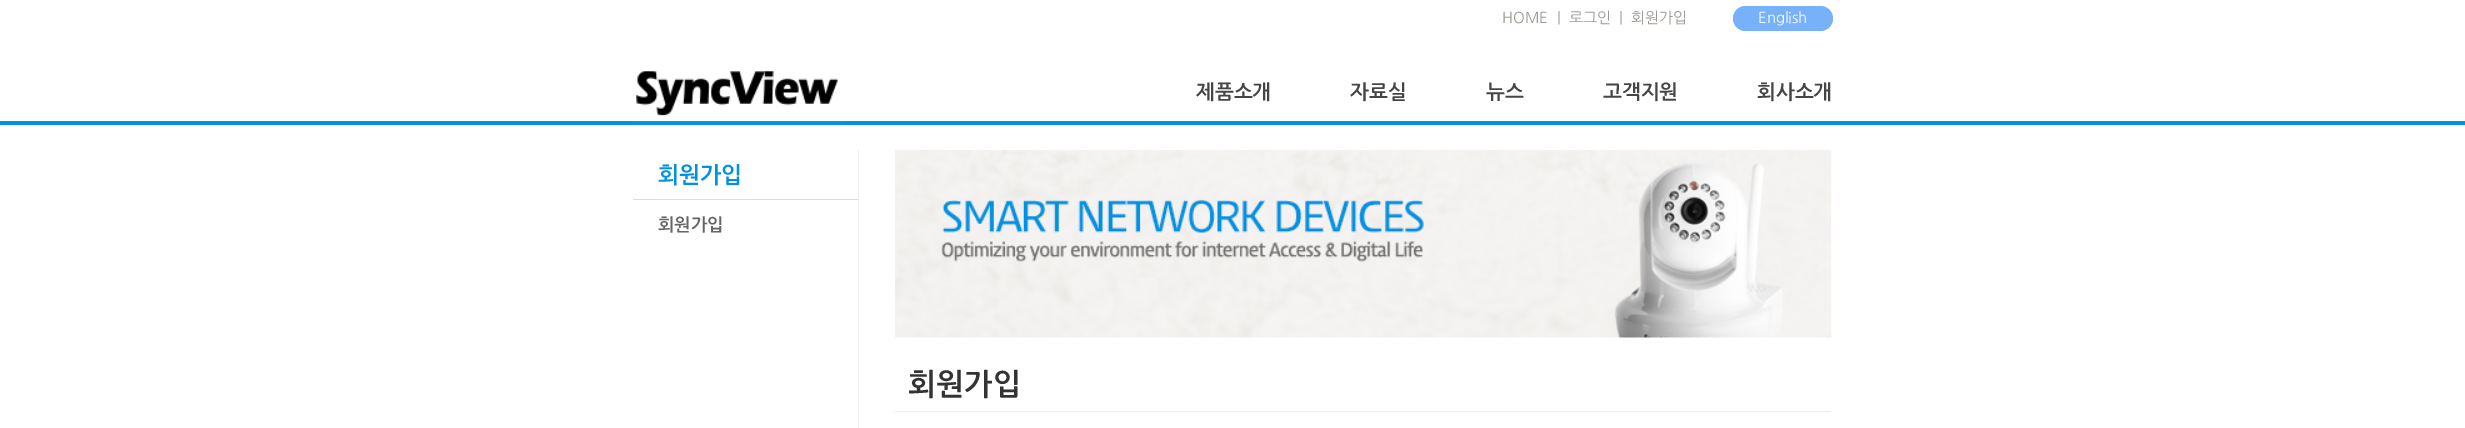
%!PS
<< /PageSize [2465 428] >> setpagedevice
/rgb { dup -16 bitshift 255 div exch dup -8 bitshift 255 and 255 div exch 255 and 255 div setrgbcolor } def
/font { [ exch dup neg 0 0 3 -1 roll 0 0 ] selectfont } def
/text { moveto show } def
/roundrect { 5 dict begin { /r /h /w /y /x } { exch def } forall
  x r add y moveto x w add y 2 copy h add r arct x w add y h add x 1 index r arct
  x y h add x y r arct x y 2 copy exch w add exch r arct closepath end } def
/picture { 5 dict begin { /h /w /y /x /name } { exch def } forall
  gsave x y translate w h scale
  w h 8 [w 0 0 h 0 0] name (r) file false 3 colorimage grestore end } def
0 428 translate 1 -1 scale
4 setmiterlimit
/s1 { /NanumGothic-Regular 15 font 16#9D9893 rgb } def
/s2 { /NanumGothic-Regular 15 font 16#FFFFFF rgb } def
/s3 { /NanumGothic-Bold 20 font 16#454545 rgb } def
/s4 { /NanumGothic-Bold 22.5 font 16#0091E0 rgb } def
/s5 { /NanumGothic-Bold 17.5 font 16#666666 rgb } def
/s6 { /NanumGothic-Bold 30 font 16#333333 rgb } def
16#FFFFFF rgb
0 0 2465 428 rectfill
16#0091E0 rgb
0 121 2465 4 rectfill
s1
(HOME) 1502 23 text
(|) 1557 23 text
(로그인) 1569 23 text
(|) 1619 23 text
(회원가입) 1631 23 text
16#76B1F9 rgb
1733 6 100 25 12.5 roundrect fill
s2
(English) 1758 23 text
(pic1.raw) 632 70 213 52 picture
s3
(제품소개) 1196 99 text
(자료실) 1350 99 text
(뉴스) 1486 99 text
(고객지원) 1603 99 text
(회사소개) 1757 99 text
16#DDDDDD rgb
633 199 225 1 rectfill
s4
(회원가입) 658 183 text
s5
(회원가입) 658 231 text
16#EEEEEE rgb
858 150 1 278 rectfill
(pic2.raw) 895 150 937 188 picture
16#ECECEC rgb
895 411 936 1 rectfill
s6
(회원가입) 908 395 text
showpage
